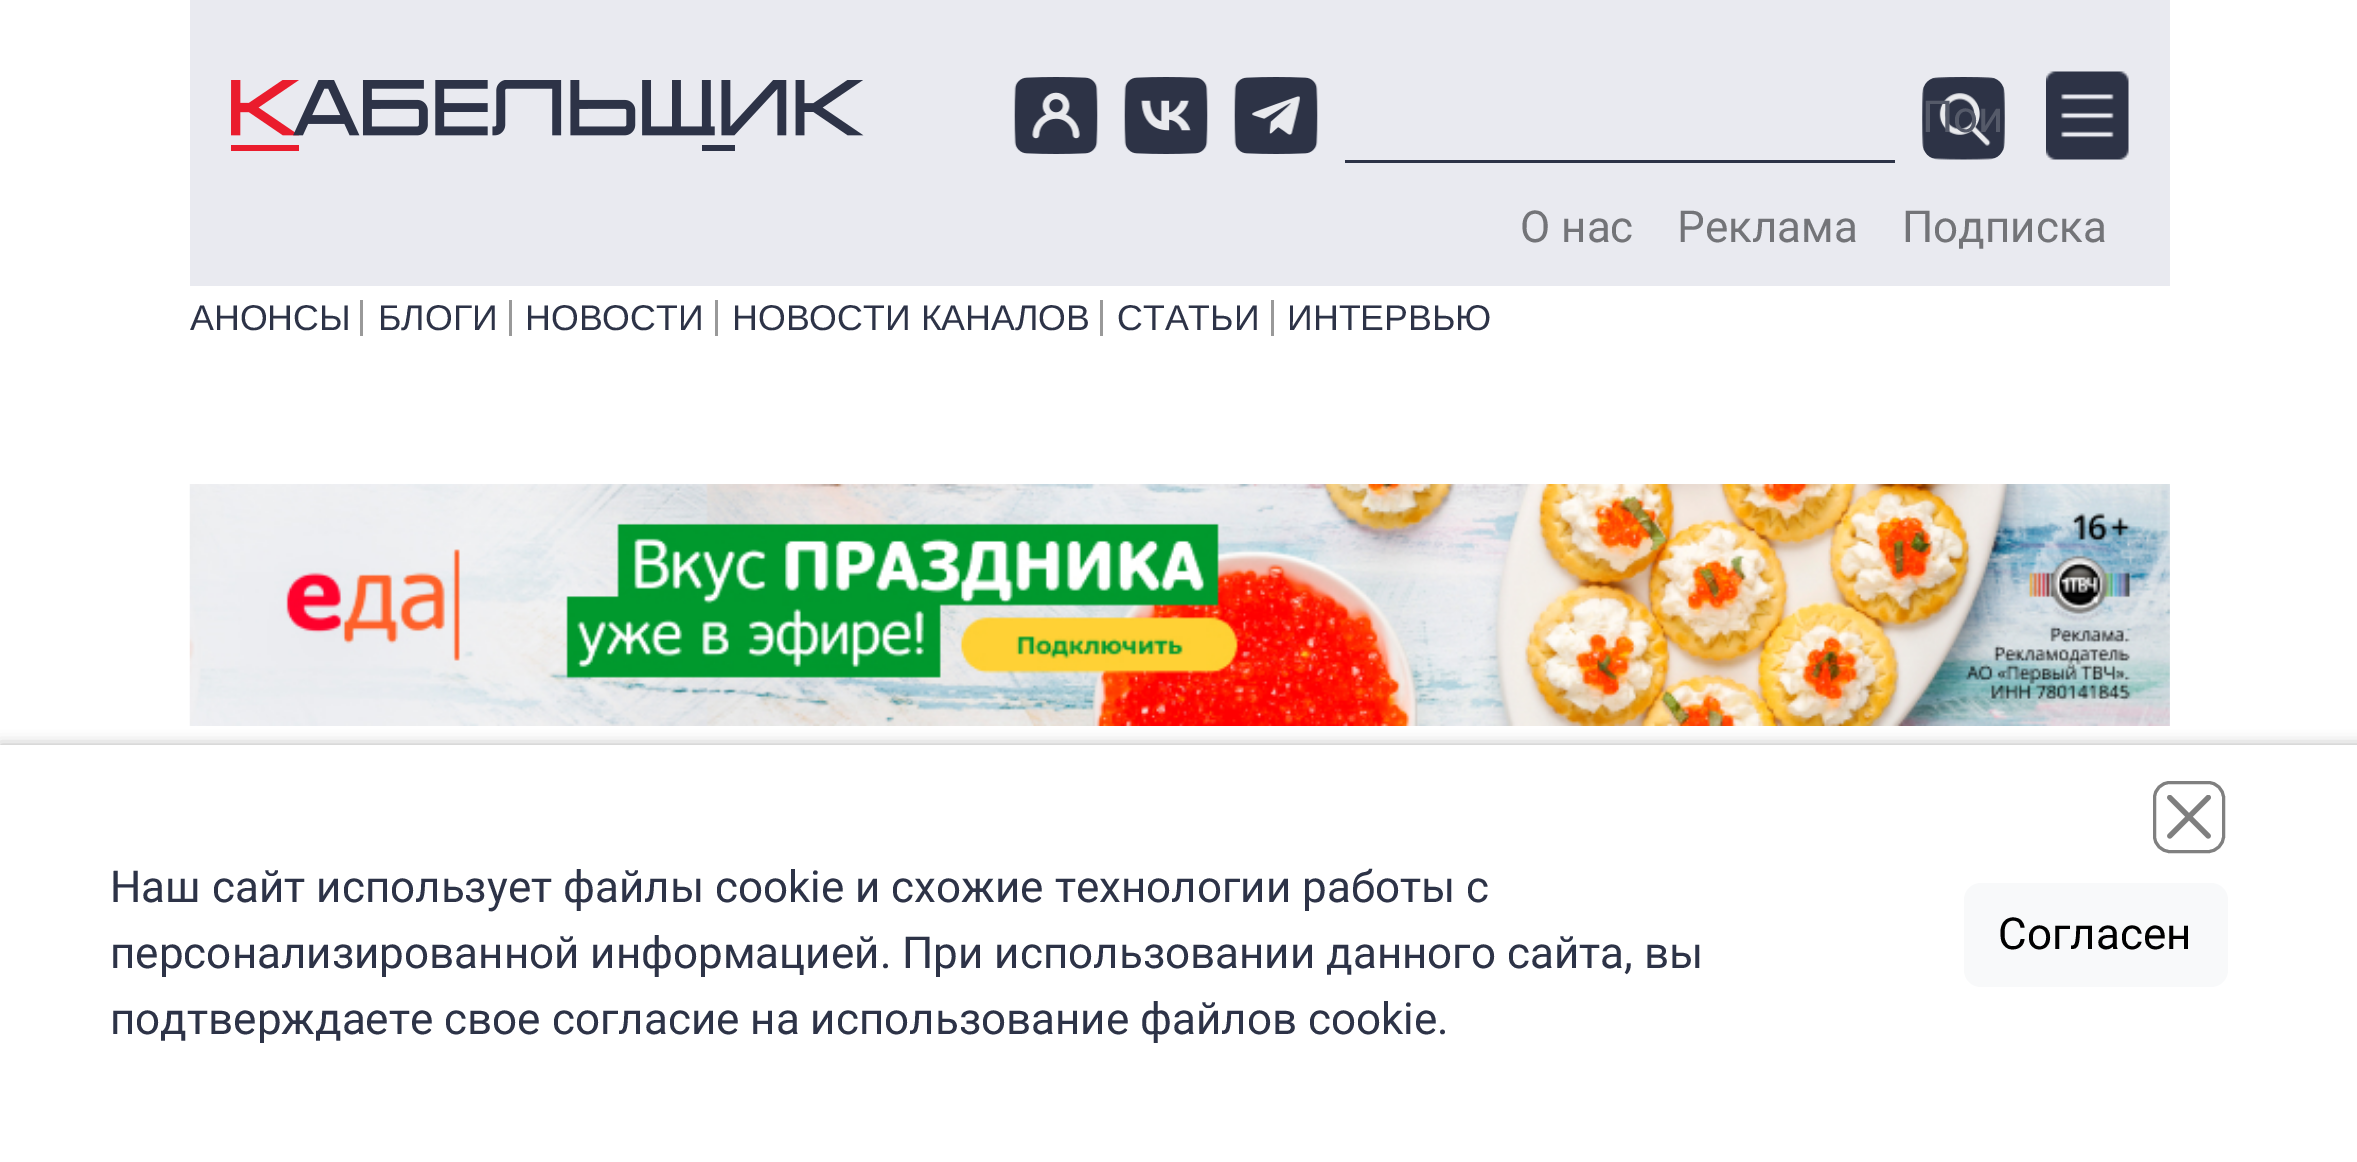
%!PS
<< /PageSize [2357 1162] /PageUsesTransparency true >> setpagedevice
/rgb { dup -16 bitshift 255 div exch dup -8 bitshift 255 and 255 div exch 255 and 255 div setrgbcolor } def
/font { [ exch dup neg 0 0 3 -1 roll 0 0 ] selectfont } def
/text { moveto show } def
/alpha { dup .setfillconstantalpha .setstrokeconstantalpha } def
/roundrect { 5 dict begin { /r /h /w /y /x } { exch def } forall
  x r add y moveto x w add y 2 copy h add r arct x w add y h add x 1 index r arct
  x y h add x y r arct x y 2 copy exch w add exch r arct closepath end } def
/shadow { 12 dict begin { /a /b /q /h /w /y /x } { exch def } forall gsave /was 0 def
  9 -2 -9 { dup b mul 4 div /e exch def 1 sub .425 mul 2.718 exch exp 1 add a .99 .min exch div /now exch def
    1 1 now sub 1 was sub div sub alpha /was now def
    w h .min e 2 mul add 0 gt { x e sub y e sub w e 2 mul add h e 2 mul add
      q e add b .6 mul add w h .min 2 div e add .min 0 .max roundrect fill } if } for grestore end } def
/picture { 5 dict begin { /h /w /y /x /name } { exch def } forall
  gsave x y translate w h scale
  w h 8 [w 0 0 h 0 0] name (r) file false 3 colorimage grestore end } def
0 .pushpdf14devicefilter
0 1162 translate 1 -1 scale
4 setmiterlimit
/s1 { /Roboto-Regular 44 font 16#555A69 rgb } def
/s2 { /Roboto-Regular 44 font 16#737478 rgb } def
/s3 { /LiberationSans-Regular 35.75 font 16#2D3347 rgb } def
/s4 { /Roboto-Regular 44 font 16#2D3347 rgb } def
/s5 { /Roboto-Regular 44 font 16#000000 rgb } def
16#FFFFFF rgb
0 0 2357 1162 rectfill
16#E9EAF0 rgb
190 0 1980 286 rectfill
(pic1.raw) 231 80 633 71 picture
(pic2.raw) 1014 77 84 77 picture
(pic3.raw) 1124 77 84 77 picture
(pic4.raw) 1234 77 84 77 picture
(pic5.raw) 1922 77 83 83 picture
s1
(Пои) 1922 132 text
16#2D3347 rgb
1345 160 550 3 rectfill
(pic6.raw) 2046 71 83 89 picture
s2
(О нас) 1520 242 text
(Реклама) 1677 242 text
(Подписка) 1902 242 text
s3
(АНОНСЫ) 190 330 text
16#999999 rgb
360 300 3 36 rectfill
s3
(БЛОГИ) 378 330 text
16#999999 rgb
509 300 3 36 rectfill
s3
(НОВОСТИ) 525 330 text
16#999999 rgb
715 300 3 36 rectfill
s3
(НОВОСТИ КАНАЛОВ) 732 330 text
16#999999 rgb
1100 300 3 36 rectfill
s3
(СТАТЬИ) 1117 330 text
16#999999 rgb
1271 300 3 36 rectfill
s3
(ИНТЕРВЬЮ) 1287 330 text
(pic7.raw) 189 484 1981 242 picture
16#000000 rgb
0 745 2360 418 0 7 0.3 shadow
16#FFFFFF rgb
0 745 2357 417 rectfill
s4
(Наш сайт использует файлы cookie и схожие технологии работы с) 110 902 text
(персонализированной информацией. При использовании данного сайта, вы) 110 968 text
(подтверждаете свое согласие на использование файлов cookie.) 110 1034 text
(pic8.raw) 2167 795 44 44 picture
16#808080 rgb
3 setlinewidth
2154.5 782.5 69 69 15.5 roundrect stroke
16#F8F9FA rgb
1964 883 264 104 17 roundrect fill
s5
(Согласен) 1998 949 text
.poppdf14devicefilter showpage
